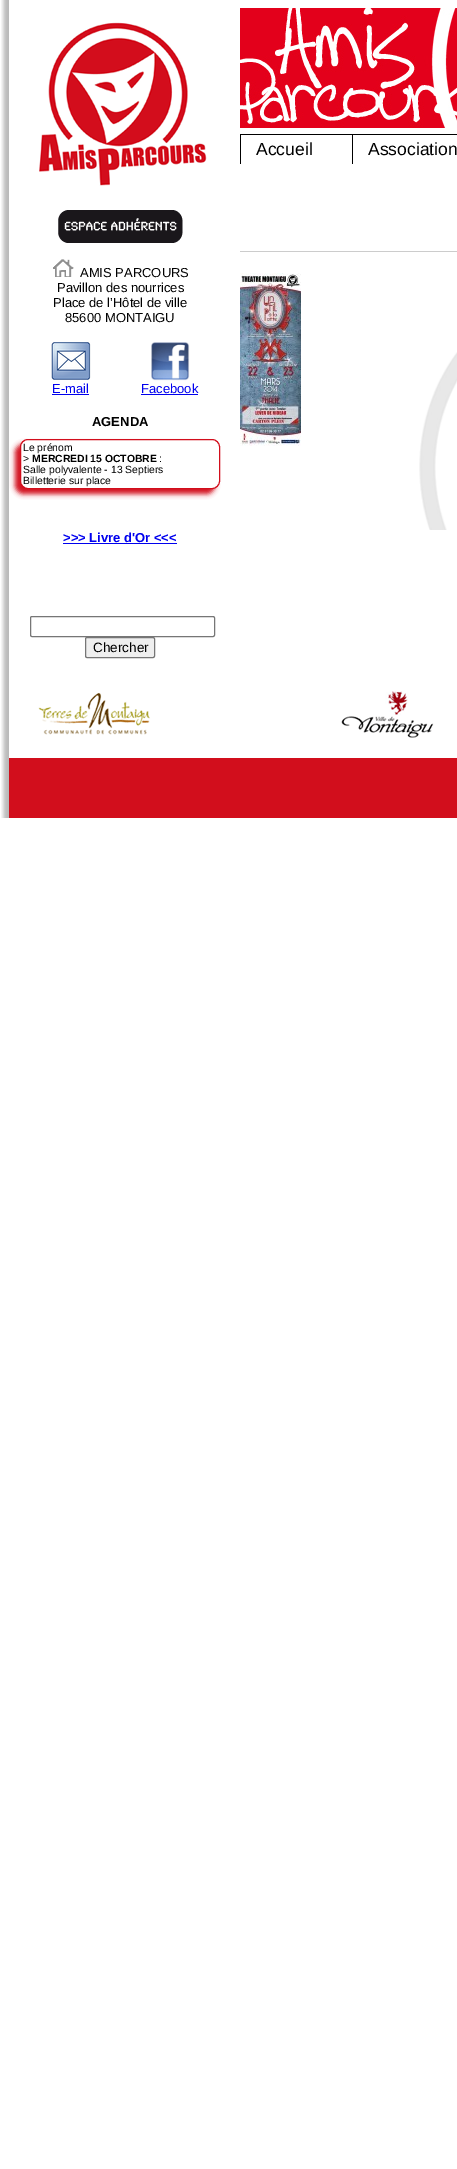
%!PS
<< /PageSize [457 2169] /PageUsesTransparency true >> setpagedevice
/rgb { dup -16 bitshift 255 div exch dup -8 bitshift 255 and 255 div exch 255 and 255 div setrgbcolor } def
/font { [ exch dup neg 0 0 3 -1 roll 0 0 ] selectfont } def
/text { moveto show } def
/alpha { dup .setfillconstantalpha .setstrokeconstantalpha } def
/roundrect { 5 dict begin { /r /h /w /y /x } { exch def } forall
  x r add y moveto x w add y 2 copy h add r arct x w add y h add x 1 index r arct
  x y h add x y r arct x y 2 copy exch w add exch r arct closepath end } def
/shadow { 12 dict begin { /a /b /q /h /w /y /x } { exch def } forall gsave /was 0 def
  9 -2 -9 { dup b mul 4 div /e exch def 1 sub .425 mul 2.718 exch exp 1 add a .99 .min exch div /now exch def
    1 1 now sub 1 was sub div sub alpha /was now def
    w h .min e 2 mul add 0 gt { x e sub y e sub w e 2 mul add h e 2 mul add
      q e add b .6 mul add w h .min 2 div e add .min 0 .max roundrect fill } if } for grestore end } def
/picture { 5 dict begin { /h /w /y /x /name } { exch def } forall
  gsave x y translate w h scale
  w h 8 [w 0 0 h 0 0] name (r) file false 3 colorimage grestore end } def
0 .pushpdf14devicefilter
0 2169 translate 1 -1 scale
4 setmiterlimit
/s1 { /LiberationSans-Regular 17.5 font 16#000000 rgb } def
/s2 { /LiberationSans-Regular 13 font 16#000000 rgb } def
/s3 { /LiberationSans-Regular 13 font 16#0000EE rgb } def
/s4 { /LiberationSans-Bold 13 font 16#000000 rgb } def
/s5 { /LiberationSans-Regular 10.4 font 16#000000 rgb } def
/s6 { /LiberationSans-Bold 10.4 font 16#000000 rgb } def
/s7 { /LiberationSans-Bold 13 font 16#0000EE rgb } def
/s8 { /LiberationSans-Regular 13.5 font 16#000000 rgb } def
16#FFFFFF rgb
0 0 457 2169 rectfill
(pic1.raw) 1 0 8 818 picture
(pic2.raw) 40 22 167 138 picture
(pic3.raw) 240 8 217 120 picture
(pic4.raw) 39 160 167 26 picture
16#000000 rgb
240 134 217 1 rectfill
240 134 1 30 rectfill
s1
(Accueil) 256 155 text
352 134 1 30 rectfill
(Association) 368 155 text
(pic5.raw) 58 210 125 33 picture
(pic6.raw) 53 259 21 18 picture
s2
(AMIS PARCOURS) 80 277 text
(Pavillon des nourrices) 57 292 text
(Place de l’Hôtel de ville) 53 307 text
(85600 MONTAIGU) 65 322 text
(pic7.raw) 51 342 40 38 picture
s3
(E-mail) 52 393 text
52 394 37 1 rectfill
(pic8.raw) 151 342 39 39 picture
(Facebook) 141 393 text
141 394 57 1 rectfill
s4
(AGENDA) 92 426 text
gsave
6 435 moveto 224 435 lineto 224 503 lineto 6 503 lineto closepath 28 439 moveto 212 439 lineto 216.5 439 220 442.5 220 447 curveto 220 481 lineto 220 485.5 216.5 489 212 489 curveto 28 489 lineto 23.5 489 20 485.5 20 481 curveto 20 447 lineto 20 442.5 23.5 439 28 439 curveto closepath eoclip newpath
16#D20E1C rgb
15 444 200 50 8 2.5 1 shadow
grestore
16#D20E1C rgb
20.5 439.5 199 49 7.5 roundrect stroke
s5
(Le prénom) 23 451 text
(>) 23 462 text
s6
(MERCREDI 15 OCTOBRE) 32 462 text
s5
(:) 159 462 text
(Salle polyvalente - 13 Septiers) 23 473 text
(Billetterie sur place) 23 484 text
s7
(>>> Livre d'Or <<<) 63 542 text
63 543 114 1 rectfill
16#767676 rgb
30.5 616.5 184 20 1.5 roundrect stroke
16#EFEFEF rgb
85.5 637.5 69 20 1.5 roundrect gsave fill grestore
16#767676 rgb
stroke
s8
(Chercher) 93 652 text
(pic9.raw) 419 352 38 178 picture
16#CCCCCC rgb
240 251 217 1 rectfill
(pic10.raw) 240 273 61 173 picture
16#D20E1C rgb
9 758 448 60 rectfill
(pic11.raw) 38 690 396 48 picture
.poppdf14devicefilter showpage
